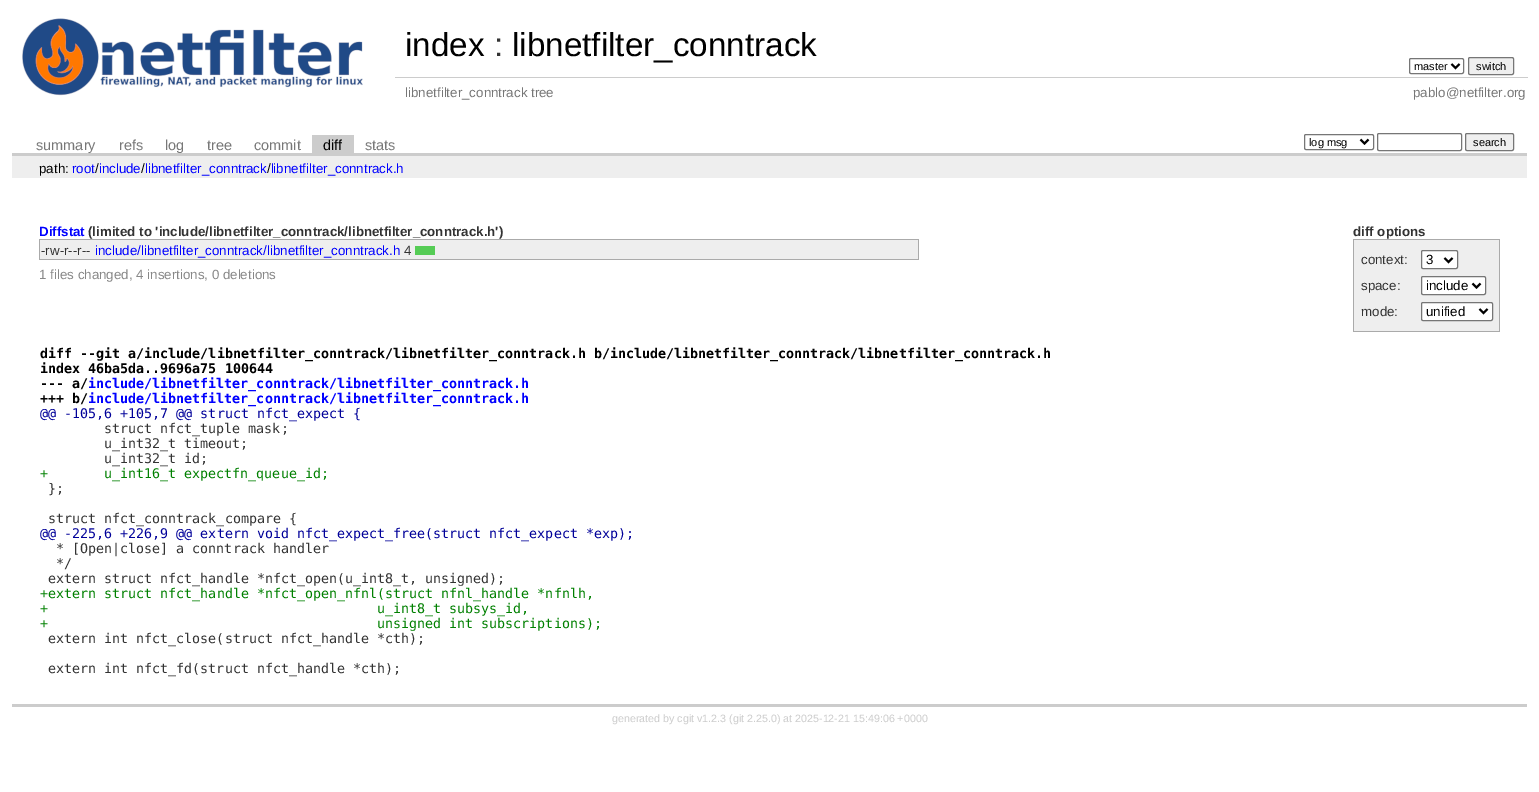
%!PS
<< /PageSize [1539 792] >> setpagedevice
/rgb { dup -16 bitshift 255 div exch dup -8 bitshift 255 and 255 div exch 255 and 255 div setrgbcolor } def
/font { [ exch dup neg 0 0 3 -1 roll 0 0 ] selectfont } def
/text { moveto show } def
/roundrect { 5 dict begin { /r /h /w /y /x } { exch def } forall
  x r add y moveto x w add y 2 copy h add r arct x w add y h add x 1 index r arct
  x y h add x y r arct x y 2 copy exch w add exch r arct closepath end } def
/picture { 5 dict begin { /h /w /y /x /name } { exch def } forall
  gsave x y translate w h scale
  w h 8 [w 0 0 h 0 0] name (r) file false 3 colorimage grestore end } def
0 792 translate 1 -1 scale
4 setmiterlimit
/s1 { /LiberationSans-Regular 33.25 font 16#000000 rgb } def
/s2 { /LiberationSans-Regular 33.25 font 16#333333 rgb } def
/s3 { /LiberationSans-Regular 11 font 16#000000 rgb } def
/s4 { /LiberationSans-Regular 13.33 font 16#777777 rgb } def
/s5 { /LiberationSans-Regular 14.5 font 16#777777 rgb } def
/s6 { /LiberationSans-Regular 14.5 font 16#000000 rgb } def
/s7 { /LiberationSans-Regular 13.33 font 16#000000 rgb } def
/s8 { /LiberationSans-Regular 13.33 font 16#0000FF rgb } def
/s9 { /LiberationSans-Bold 13.33 font 16#0000FF rgb } def
/s10 { /LiberationSans-Bold 13.33 font 16#333333 rgb } def
/s11 { /LiberationSans-Regular 13.33 font 16#333333 rgb } def
/s12 { /LiberationSans-Regular 13.33 font 16#888888 rgb } def
/s13 { /DejaVuSansMono-Bold 13.33 font 16#000000 rgb } def
/s14 { /DejaVuSansMono-Bold 13.33 font 16#0000FF rgb } def
/s15 { /DejaVuSansMono-Regular 13.33 font 16#000099 rgb } def
/s16 { /DejaVuSansMono-Regular 13.33 font 16#333333 rgb } def
/s17 { /DejaVuSansMono-Regular 13.33 font 16#008000 rgb } def
/s18 { /LiberationSans-Regular 10.7 font 16#CCCCCC rgb } def
16#FFFFFF rgb
0 0 1539 792 rectfill
(pic1.raw) 22 18 341 78 picture
s1
(index) 405 56 text
s2
(:) 494 56 text
s1
(libnetfilter_conntrack) 512 56 text
16#767676 rgb
1409.5 58.5 54 15 1.5 roundrect stroke
16#000000 rgb
2 setlinewidth
1451.5 64 moveto 1455.5 68 lineto 1459.5 64 lineto stroke
s3
(master) 1414 70 text
16#EFEFEF rgb
1468.5 57.5 45 17 1.5 roundrect gsave fill grestore
16#767676 rgb
1 setlinewidth
stroke
s3
(switch) 1476 70 text
s4
(libnetfilter_conntrack tree) 405 97 text
16#CCCCCC rgb
395 77 1133 1 rectfill
s4
(pablo@netfilter.org) 1413 97 text
16#CCCCCC rgb
12 153 1515 3 rectfill
s5
(summary) 36 150 text
(refs) 119 150 text
(log) 165 150 text
(tree) 207 150 text
(commit) 254 150 text
16#CCCCCC rgb
312 135 42 18 rectfill
s6
(diff) 323 150 text
s5
(stats) 365 150 text
16#767676 rgb
1304.5 134.5 69 15 1.5 roundrect stroke
16#000000 rgb
2 setlinewidth
1360.5 139.5 moveto 1364.5 143.5 lineto 1368.5 139.5 lineto stroke
s3
(log msg) 1309 146 text
16#767676 rgb
1 setlinewidth
1377.5 133.5 84 17 1.5 roundrect stroke
16#EFEFEF rgb
1465.5 133.5 48 17 1.5 roundrect gsave fill grestore
16#767676 rgb
stroke
s3
(search) 1473 146 text
16#EEEEEE rgb
12 156 1515 22 rectfill
s7
(path:) 39 173 text
s8
(root include libnetfilter_conntrack libnetfilter_conntrack.h) 72 173 text
s7
(/) 95 173 text
(/) 141 173 text
(/) 267 173 text
16#CCCCCC rgb
12 704 1515 3 rectfill
s9
(Diffstat) 39 236 text
s10
(\(limited to 'include/libnetfilter_conntrack/libnetfilter_conntrack.h'\)) 88 236 text
(diff options) 1353 236 text
16#EEEEEE rgb
1354 240 145 91 rectfill
16#AAAAAA rgb
1353 239 147 1 rectfill
1499 239 1 93 rectfill
1353 331 147 1 rectfill
1353 239 1 93 rectfill
s11
(context:) 1361 264 text
16#FFFFFF rgb
1421.5 250.5 36 18 1.5 roundrect gsave fill grestore
16#767676 rgb
stroke
16#000000 rgb
2 setlinewidth
1444.5 258 moveto 1448.5 262 lineto 1452.5 258 lineto stroke
(3) 1426 264 text
s11
(space:) 1361 290 text
16#FFFFFF rgb
1421.5 276.5 64 18 1.5 roundrect gsave fill grestore
16#767676 rgb
1 setlinewidth
stroke
16#000000 rgb
2 setlinewidth
1472.5 283.5 moveto 1476.5 287.5 lineto 1480.5 283.5 lineto stroke
(include) 1426 290 text
s11
(mode:) 1361 316 text
16#FFFFFF rgb
1421.5 302.5 71 18 1.5 roundrect gsave fill grestore
16#767676 rgb
1 setlinewidth
stroke
16#000000 rgb
2 setlinewidth
1479.5 309 moveto 1483.5 313 lineto 1487.5 309 lineto stroke
(unified) 1426 316 text
16#EEEEEE rgb
40 240 878 19 rectfill
16#AAAAAA rgb
39 239 880 1 rectfill
918 239 1 21 rectfill
39 259 880 1 rectfill
39 239 1 21 rectfill
s11
(-rw-r--r--) 41 255 text
s8
(include/libnetfilter_conntrack/libnetfilter_conntrack.h) 95 255 text
s11
(4) 404 255 text
16#55CC55 rgb
415 246 20 9 rectfill
s12
(1 files changed, 4 insertions, 0 deletions) 39 279 text
s13
(diff --git a/include/libnetfilter_conntrack/libnetfilter_conntrack.h b/include/libnetfilter_conntrack/libnetfilter_conntrack.h) 40 358 text
(index 46ba5da..9696a75 100644) 40 373 text
(--- a/) 40 388 text
s14
(include/libnetfilter_conntrack/libnetfilter_conntrack.h) 88 388 text
s13
(+++ b/) 40 403 text
s14
(include/libnetfilter_conntrack/libnetfilter_conntrack.h) 88 403 text
s15
(@@ -105,6 +105,7 @@ struct nfct_expect {) 40 418 text
s16
(struct nfct_tuple mask;) 104 433 text
(u_int32_t timeout;) 104 448 text
(u_int32_t id;) 104 463 text
s17
(+) 40 478 text
(u_int16_t expectfn_queue_id;) 104 478 text
s16
(};) 48 493 text
(struct nfct_conntrack_compare {) 48 523 text
s15
(@@ -225,6 +226,9 @@ extern void nfct_expect_free\(struct nfct_expect *exp\);) 40 538 text
s16
(* [Open|close] a conntrack handler) 56 553 text
(*/) 56 568 text
(extern struct nfct_handle *nfct_open\(u_int8_t, unsigned\);) 48 583 text
s17
(+extern struct nfct_handle *nfct_open_nfnl\(struct nfnl_handle *nfnlh,) 40 598 text
(+) 40 613 text
(u_int8_t subsys_id,) 377 613 text
(+) 40 628 text
(unsigned int subscriptions\);) 377 628 text
s16
(extern int nfct_close\(struct nfct_handle *cth\);) 48 643 text
(extern int nfct_fd\(struct nfct_handle *cth\);) 48 673 text
s18
(generated by cgit v1.2.3 \(git 2.25.0\) at 2025-12-21 15:49:06 +0000) 612 722 text
showpage
